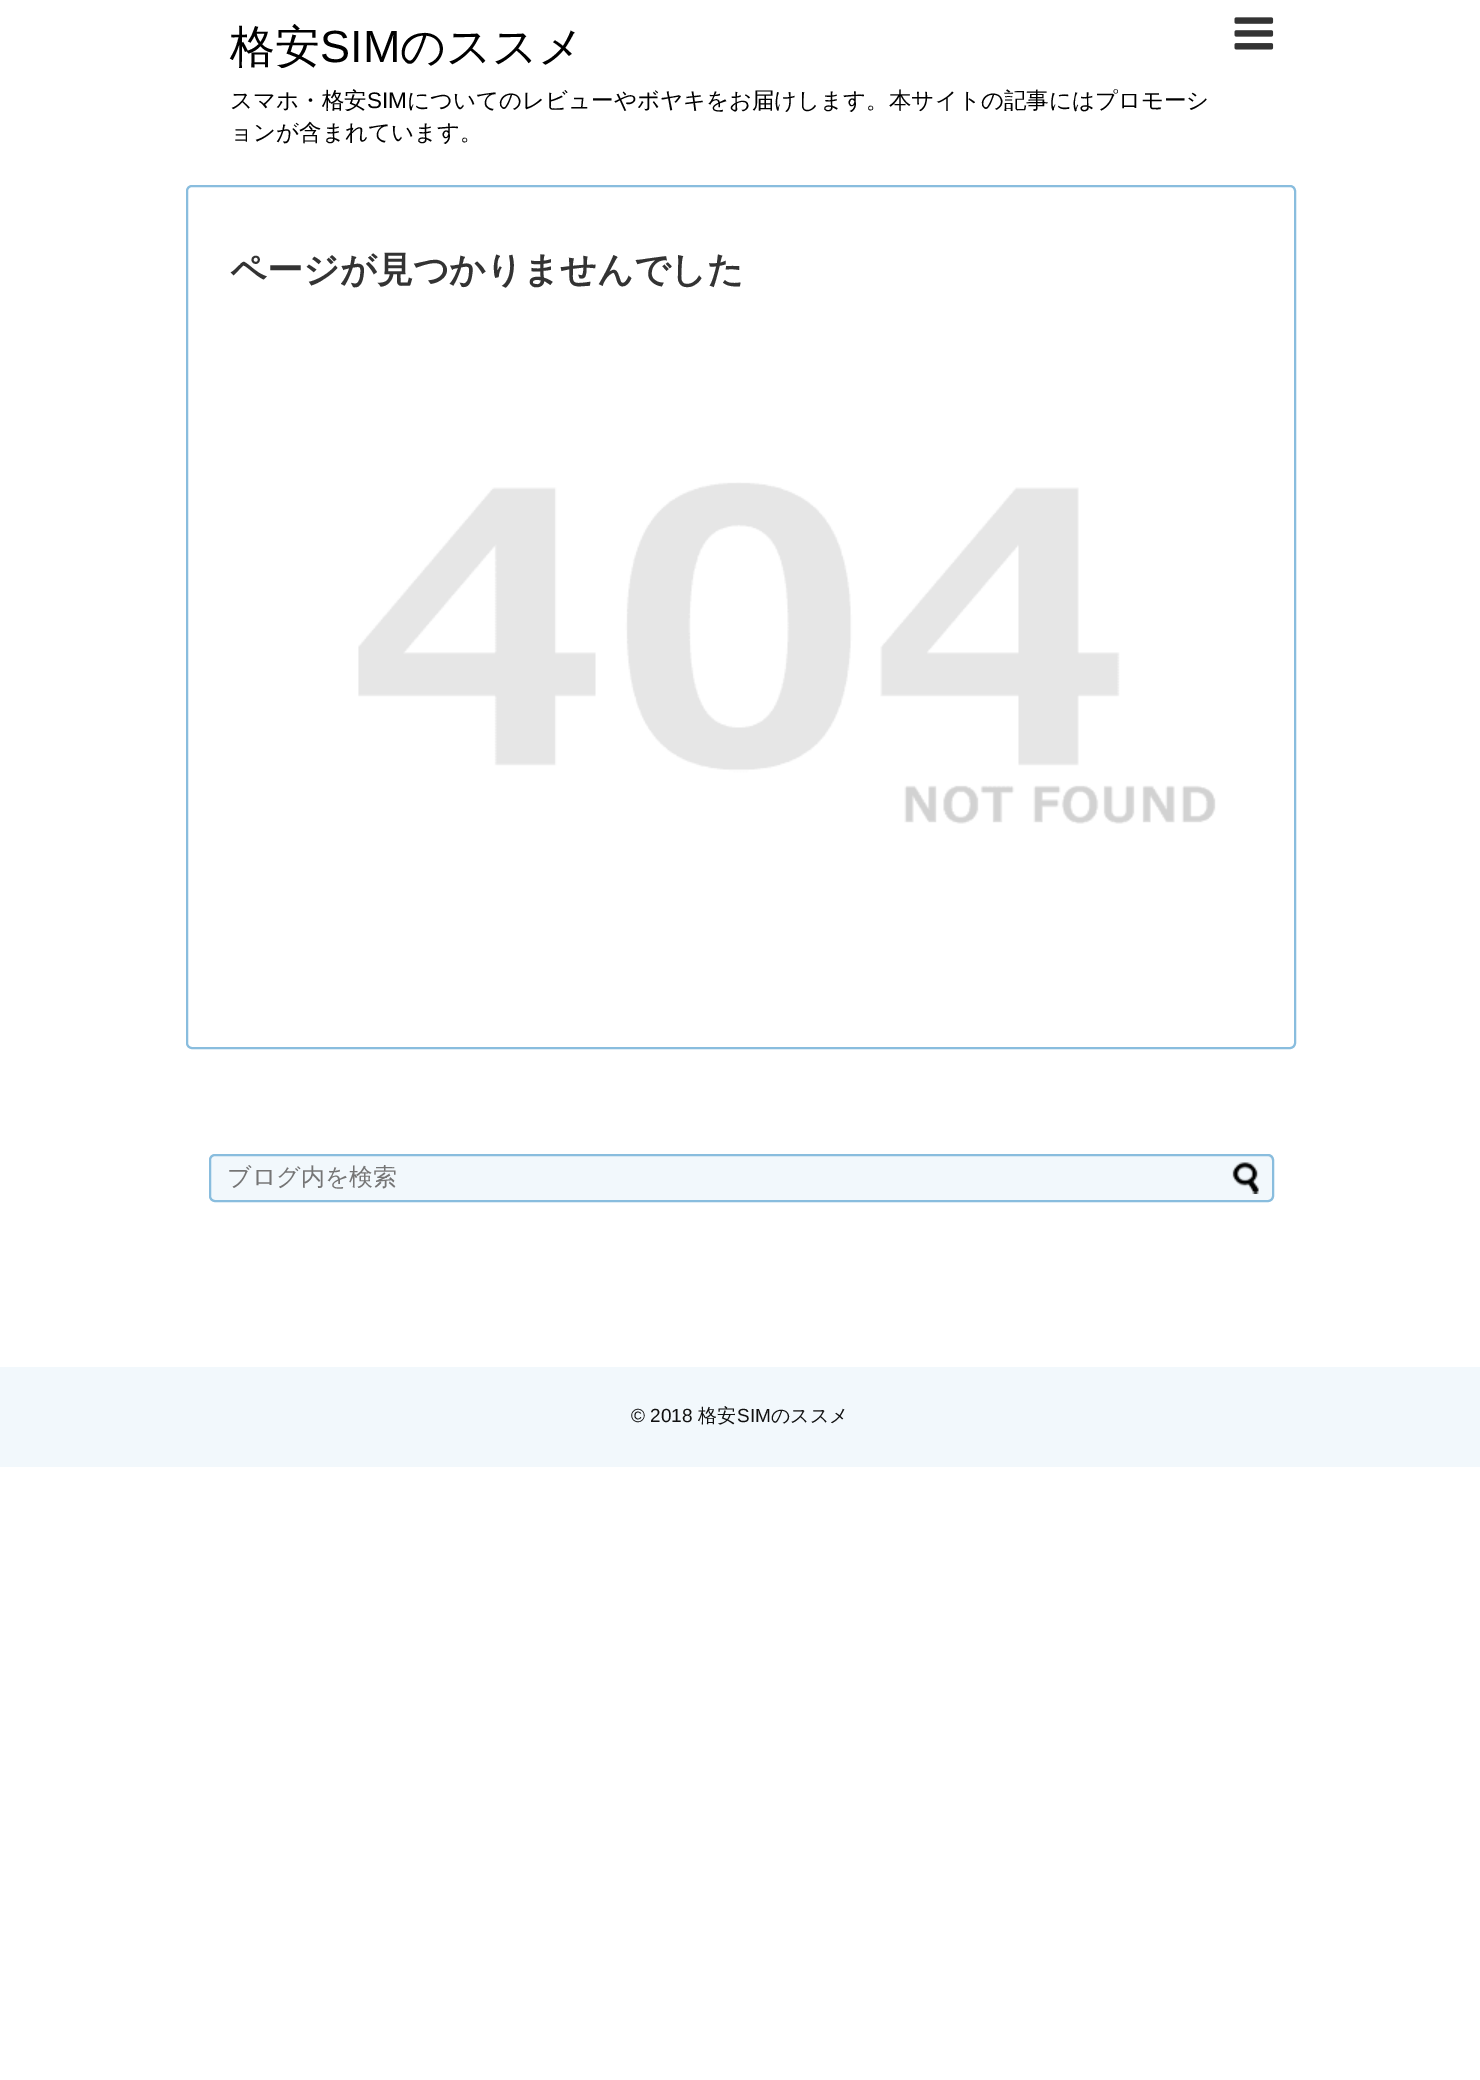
%!PS
<< /PageSize [1480 2080] >> setpagedevice
/rgb { dup -16 bitshift 255 div exch dup -8 bitshift 255 and 255 div exch 255 and 255 div setrgbcolor } def
/font { [ exch dup neg 0 0 3 -1 roll 0 0 ] selectfont } def
/text { moveto show } def
/roundrect { 5 dict begin { /r /h /w /y /x } { exch def } forall
  x r add y moveto x w add y 2 copy h add r arct x w add y h add x 1 index r arct
  x y h add x y r arct x y 2 copy exch w add exch r arct closepath end } def
/picture { 5 dict begin { /h /w /y /x /name } { exch def } forall
  gsave x y translate w h scale
  w h 8 [w 0 0 h 0 0] name (r) file false 3 colorimage grestore end } def
0 2080 translate 1 -1 scale
4 setmiterlimit
/s1 { /WenQuanYiZenHei-Medium 45 font 16#000000 rgb } def
/s2 { /LiberationSans-Regular 45 font 16#000000 rgb } def
/s3 { /WenQuanYiZenHei-Medium 22.5 font 16#000000 rgb } def
/s4 { /LiberationSans-Regular 22.5 font 16#000000 rgb } def
/s5 { /WenQuanYiZenHei-Bold 36 font 16#333333 rgb } def
/s6 { /WenQuanYiZenHei-Medium 24 font 16#757575 rgb } def
/s7 { /LiberationSans-Regular 19 font 16#111111 rgb } def
/s8 { /WenQuanYiZenHei-Medium 19 font 16#111111 rgb } def
16#FFFFFF rgb
0 0 1480 2080 rectfill
s1
(格安) 230 62 text
s2
(SIM) 320 62 text
s1
(のススメ) 400 62 text
s3
(スマホ・格安) 230 108 text
s4
(SIM) 367 108 text
s3
(についてのレビューやボヤキをお届けします。本サイトの記事にはプロモーシ) 407 108 text
(ョンが含まれています。) 230 140 text
(pic1.raw) 1234 17 40 33 picture
16#89BDDE rgb
2 setlinewidth
187 186 1108 862 5 roundrect stroke
s5
(ページが見つかりませんでした) 230 282 text
(pic2.raw) 358 482 858 342 picture
16#F2F8FC rgb
209 1154 1065 48 6 roundrect fill
16#E0E5E9 rgb
214 1156 moveto 1268 1156 lineto 1270 1156 1272 1159 1272 1161 curveto 1272 1158 1270 1155 1267 1155 curveto 215 1155 lineto 212 1155 210 1158 210 1161 curveto 210 1159 212 1156 214 1156 curveto closepath fill
16#89BDDE rgb
210 1155 1063 46 5 roundrect stroke
s6
(ブログ内を検索) 227 1185 text
(pic3.raw) 1232 1162 27 32 picture
16#F2F8FC rgb
0 1367 1480 100 rectfill
s7
(© 2018) 631 1422 text
s8
(格安) 698 1422 text
s7
(SIM) 737 1422 text
s8
(のススメ) 771 1422 text
showpage
